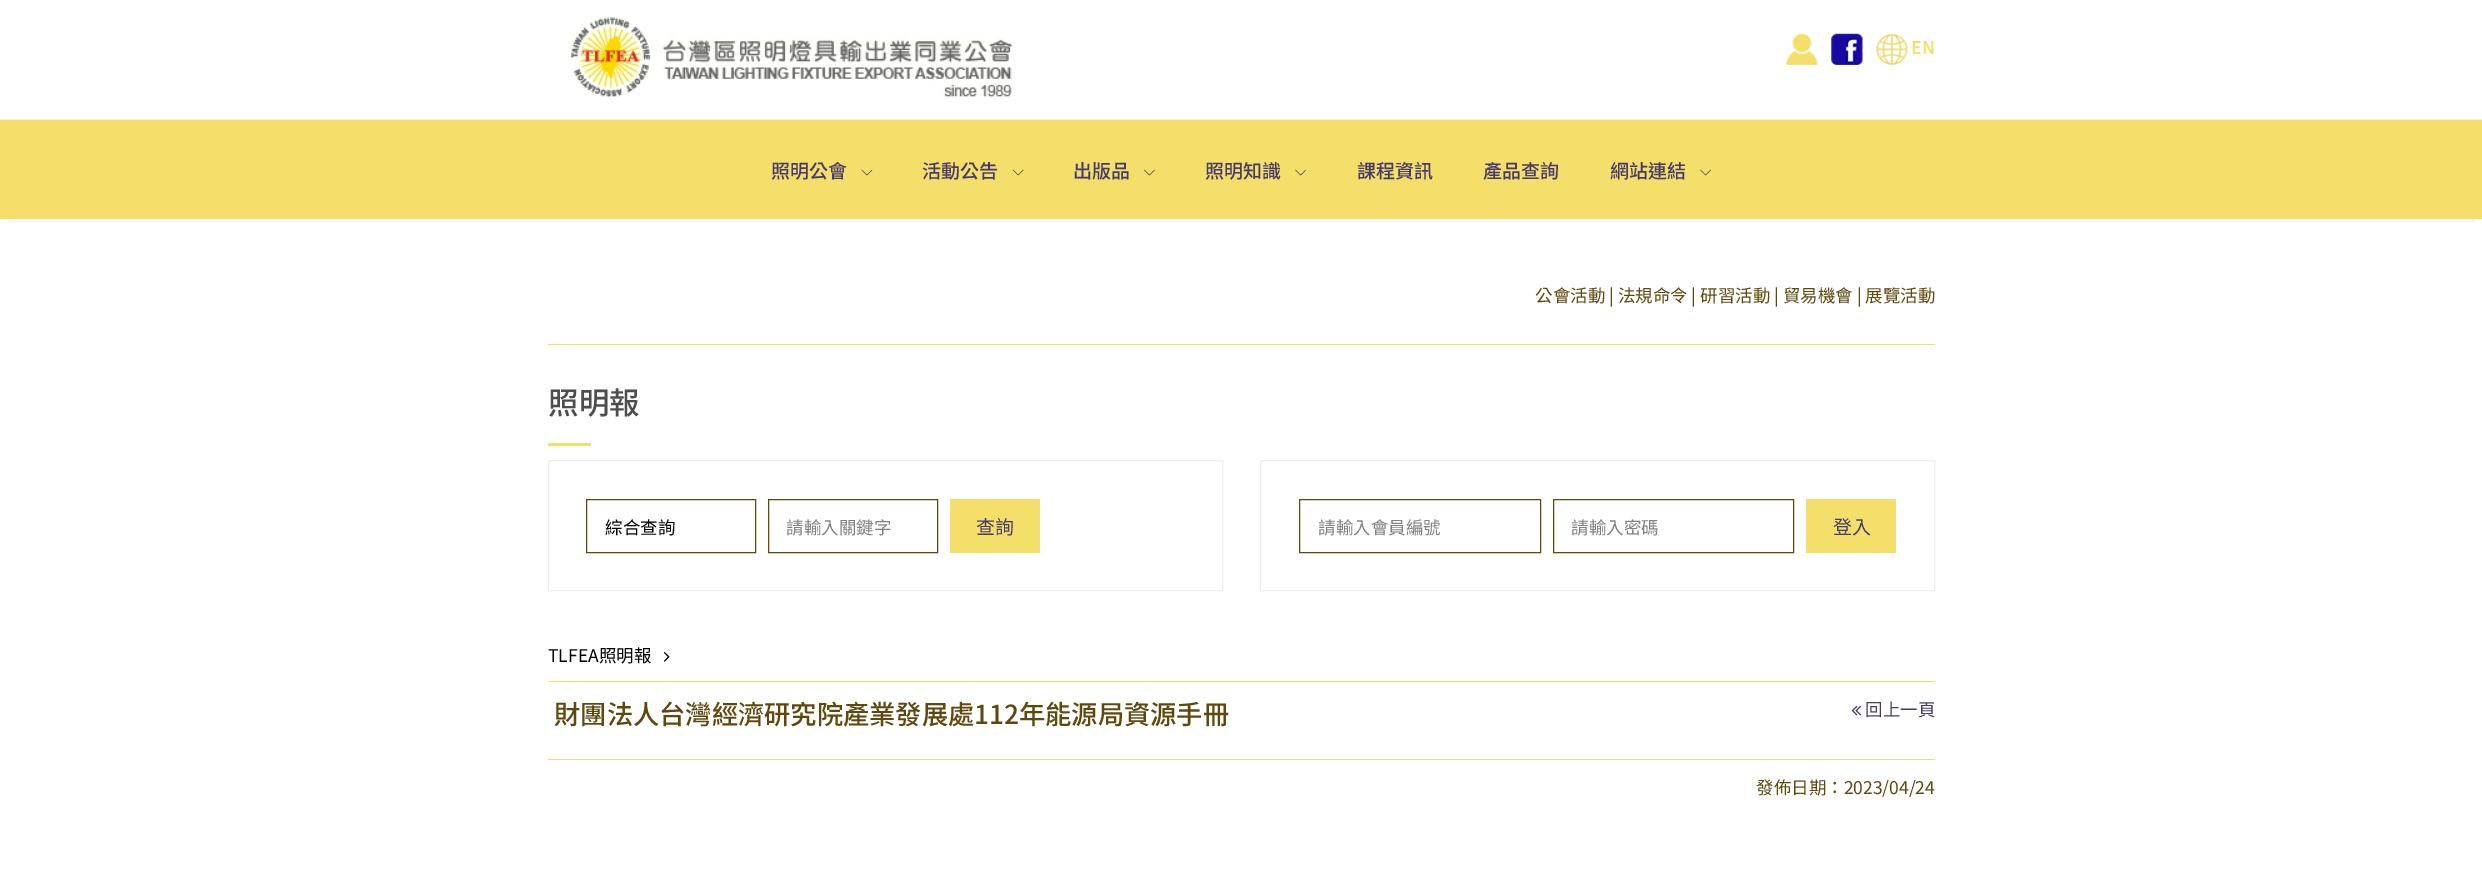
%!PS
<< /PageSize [2482 881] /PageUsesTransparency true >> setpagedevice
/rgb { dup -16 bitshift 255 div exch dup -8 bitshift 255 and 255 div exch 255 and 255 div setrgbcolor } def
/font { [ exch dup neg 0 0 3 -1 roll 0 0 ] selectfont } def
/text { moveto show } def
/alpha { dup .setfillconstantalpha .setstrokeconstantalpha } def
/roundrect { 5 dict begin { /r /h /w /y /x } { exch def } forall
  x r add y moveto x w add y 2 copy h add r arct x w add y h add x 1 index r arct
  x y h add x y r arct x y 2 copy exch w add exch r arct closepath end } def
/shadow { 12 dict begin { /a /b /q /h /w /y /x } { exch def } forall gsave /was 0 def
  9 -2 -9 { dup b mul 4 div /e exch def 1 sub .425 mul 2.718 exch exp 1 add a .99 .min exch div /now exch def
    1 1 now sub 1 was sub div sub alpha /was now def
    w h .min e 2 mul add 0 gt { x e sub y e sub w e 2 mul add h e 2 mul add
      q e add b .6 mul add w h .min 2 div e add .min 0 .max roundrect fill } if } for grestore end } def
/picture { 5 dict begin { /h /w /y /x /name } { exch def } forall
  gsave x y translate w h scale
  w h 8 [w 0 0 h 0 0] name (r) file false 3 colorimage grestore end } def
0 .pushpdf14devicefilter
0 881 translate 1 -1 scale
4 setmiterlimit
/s1 { /NotoSansTC-SemiBold 17.5 font 16#F4DF6A rgb } def
/s2 { /NotoSansTC-Medium 19 font 16#483A6C rgb } def
/s3 { /NotoSansTC-Regular 17.5 font 16#60480D rgb } def
/s4 { /NotoSansTC-Medium 30.5 font 16#4D4D4D rgb } def
/s5 { /NotoSansTC-Regular 17.5 font 16#000000 rgb } def
/s6 { /NotoSansTC-Regular 17.5 font 16#808080 rgb } def
/s7 { /NotoSansTC-Regular 19 font 16#483A6C rgb } def
/s8 { /NotoSansTC-Medium 26.25 font 16#60480D rgb } def
/s9 { /NotoSansTC-Regular 17.5 font 16#483A6C rgb } def
16#FFFFFF rgb
0 0 2482 881 rectfill
gsave
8 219 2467 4 rectclip
16#000000 rgb
8 14 2467 204 0 6 0.1 shadow
grestore
16#EEEEEE rgb
0 119 2482 1 rectfill
(pic1.raw) 569 16 444 83 picture
(pic2.raw) 1786 33 32 32 picture
(pic3.raw) 1831 33 32 32 picture
(pic4.raw) 1876 33 32 32 picture
s1
(EN) 1911 54 text
0 120 2482 99 rectfill
s2
(照明公會) 771 178 text
(pic5.raw) 861 169 12 7 picture
(活動公告) 922 178 text
(pic6.raw) 1012 169 12 7 picture
(出版品) 1073 178 text
(pic7.raw) 1144 169 11 7 picture
(照明知識) 1205 178 text
(pic8.raw) 1295 169 11 7 picture
(課程資訊) 1357 178 text
(產品查詢) 1483 178 text
(網站連結) 1610 178 text
(pic8.raw) 1700 169 11 7 picture
s3
(公會活動 | 法規命令 | 研習活動 | 貿易機會 | 展覽活動) 1535 302 text
16#F4DF6A rgb
548 344 1387 1 rectfill
s4
(照明報) 548 414 text
16#F4DF6A rgb
548 443 43 3 rectfill
16#EEEEEE rgb
548.5 460.5 674 130 rectstroke
16#60480D rgb
586.5 499.5 169 53 rectstroke
s5
(綜合查詢) 605 534 text
16#60480D rgb
768.5 499.5 169 53 rectstroke
s6
(請輸入關鍵字) 786 534 text
16#F4DF6A rgb
950 499 90 54 rectfill
s7
(查詢) 976 534 text
16#EEEEEE rgb
1260.5 460.5 674 130 rectstroke
16#60480D rgb
1299.5 499.5 241 53 rectstroke
s6
(請輸入會員編號) 1318 534 text
16#60480D rgb
1553.5 499.5 240 53 rectstroke
s6
(請輸入密碼) 1571 534 text
16#F4DF6A rgb
1806 499 90 54 rectfill
s7
(登入) 1833 534 text
s5
(TLFEA照明報) 548 662 text
(pic9.raw) 663 652 7 10 picture
16#F4DF6A rgb
548 681 1387 1 rectfill
s8
(財團法人台灣經濟研究院產業發展處112年能源局資源手冊) 554 724 text
(pic10.raw) 1851 705 11 11 picture
s9
(回上一頁) 1865 716 text
16#F4DF6A rgb
548 759 1387 1 rectfill
s3
(發佈日期：2023/04/24) 1756 794 text
.poppdf14devicefilter showpage
